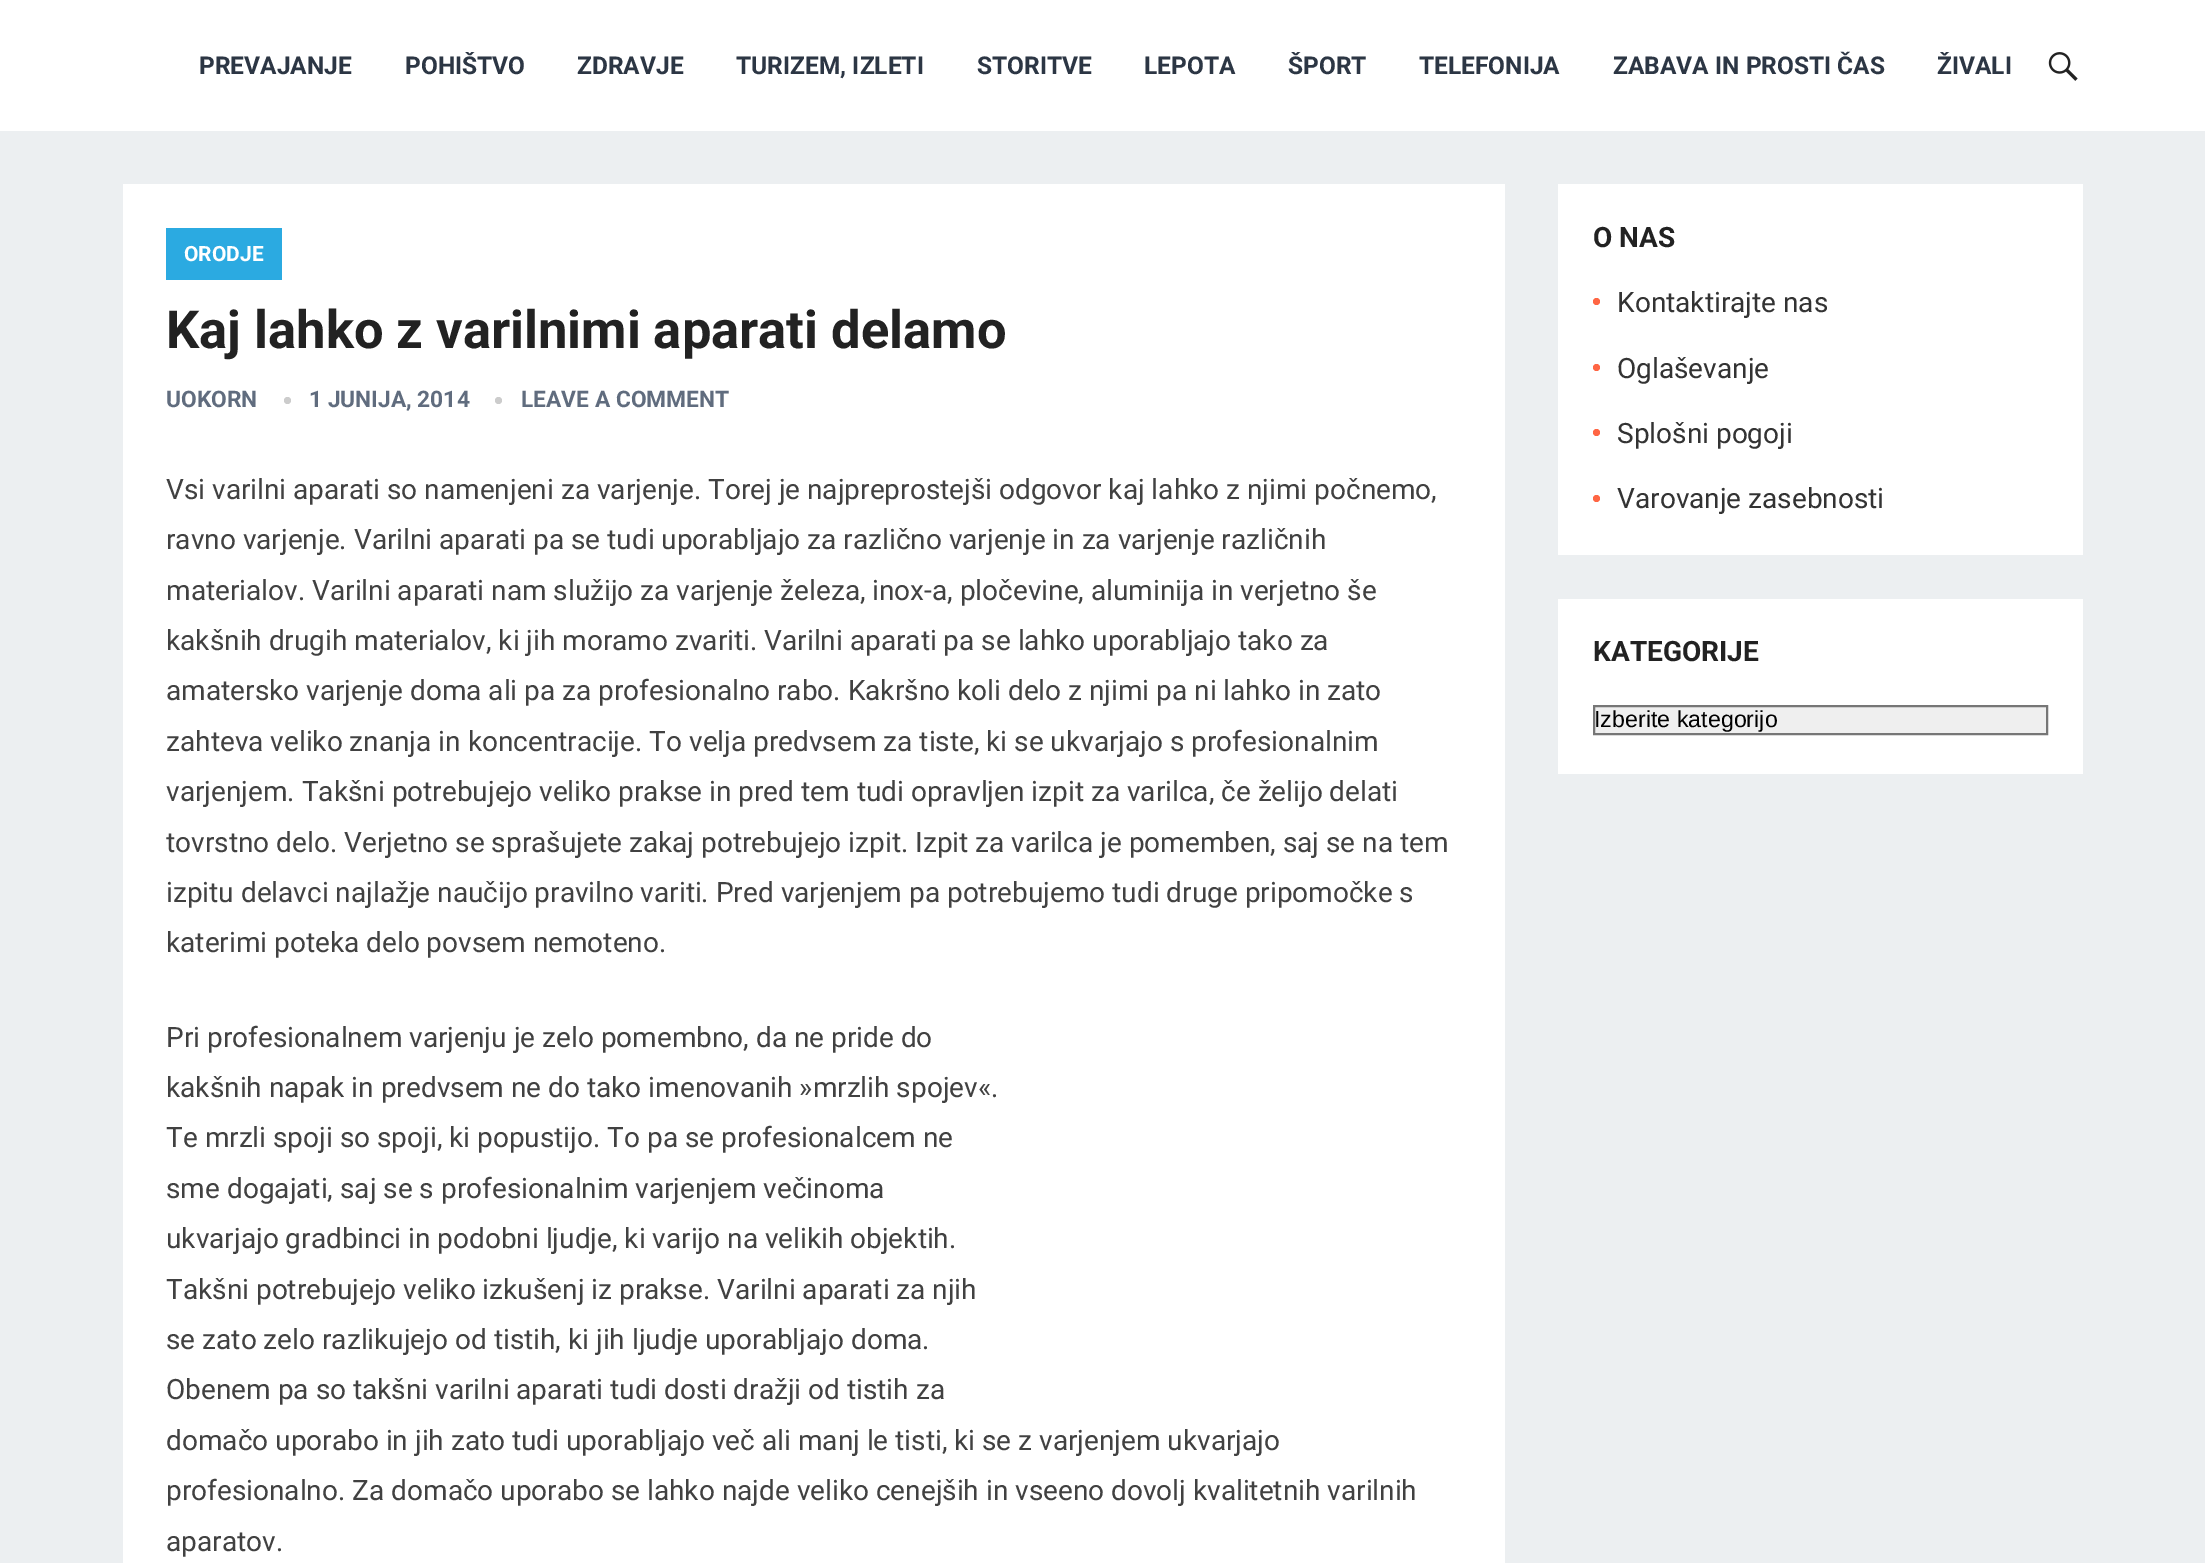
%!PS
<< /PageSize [2205 1563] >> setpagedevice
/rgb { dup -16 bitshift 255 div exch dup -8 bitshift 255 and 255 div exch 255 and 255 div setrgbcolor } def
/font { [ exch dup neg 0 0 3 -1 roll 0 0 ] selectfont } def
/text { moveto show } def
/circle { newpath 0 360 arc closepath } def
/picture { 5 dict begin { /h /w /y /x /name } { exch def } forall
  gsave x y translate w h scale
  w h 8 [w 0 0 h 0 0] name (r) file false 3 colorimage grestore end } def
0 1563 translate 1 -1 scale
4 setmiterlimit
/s1 { /Roboto-Bold 24.5 font 16#2C3644 rgb } def
/s2 { /Roboto-Bold 21 font 16#FFFFFF rgb } def
/s3 { /Roboto-Bold 52.5 font 16#222222 rgb } def
/s4 { /Roboto-Bold 22.75 font 16#606C7E rgb } def
/s5 { /Roboto-Regular 28 font 16#414141 rgb } def
/s6 { /Roboto-Bold 28 font 16#222222 rgb } def
/s7 { /Roboto-Regular 28 font 16#333333 rgb } def
/s8 { /LiberationSans-Regular 23.25 font 16#000000 rgb } def
16#ECEFF1 rgb
0 0 2205 1563 rectfill
16#FFFFFF rgb
0 0 2205 131 rectfill
s1
(PREVAJANJE) 199 74 text
(POHIŠTVO) 405 74 text
(ZDRAVJE) 577 74 text
(TURIZEM, IZLETI) 736 74 text
(STORITVE) 977 74 text
(LEPOTA) 1144 74 text
(ŠPORT) 1288 74 text
(TELEFONIJA) 1419 74 text
(ZABAVA IN PROSTI ČAS) 1613 74 text
(ŽIVALI) 1937 74 text
(pic1.raw) 2048 52 30 29 picture
16#FFFFFF rgb
123 184 1382 1379 rectfill
16#2BAAE1 rgb
166 228 116 52 rectfill
s2
(ORODJE) 184 261 text
s3
(Kaj lahko z varilnimi aparati delamo) 166 348 text
s4
(UOKORN) 166 407 text
16#CCCCCC rgb
287.5 400.5 3.5 circle fill
s4
(1 JUNIJA, 2014) 309 407 text
16#CCCCCC rgb
498.5 400.5 3.5 circle fill
s4
(LEAVE A COMMENT) 521 407 text
s5
(Vsi varilni aparati so namenjeni za varjenje. Torej je najpreprostejši odgovor kaj lahko z njimi počnemo,) 166 499 text
(ravno varjenje. Varilni aparati pa se tudi uporabljajo za različno varjenje in za varjenje različnih) 166 549 text
(materialov. Varilni aparati nam služijo za varjenje železa, inox-a, pločevine, aluminija in verjetno še) 166 600 text
(kakšnih drugih materialov, ki jih moramo zvariti. Varilni aparati pa se lahko uporabljajo tako za) 166 650 text
(amatersko varjenje doma ali pa za profesionalno rabo. Kakršno koli delo z njimi pa ni lahko in zato) 166 700 text
(zahteva veliko znanja in koncentracije. To velja predvsem za tiste, ki se ukvarjajo s profesionalnim) 166 751 text
(varjenjem. Takšni potrebujejo veliko prakse in pred tem tudi opravljen izpit za varilca, če želijo delati) 166 801 text
(tovrstno delo. Verjetno se sprašujete zakaj potrebujejo izpit. Izpit za varilca je pomemben, saj se na tem) 166 852 text
(izpitu delavci najlažje naučijo pravilno variti. Pred varjenjem pa potrebujemo tudi druge pripomočke s) 166 902 text
(katerimi poteka delo povsem nemoteno.) 166 952 text
(Pri profesionalnem varjenju je zelo pomembno, da ne pride do) 166 1047 text
(kakšnih napak in predvsem ne do tako imenovanih »mrzlih spojev«.) 166 1097 text
(Te mrzli spoji so spoji, ki popustijo. To pa se profesionalcem ne) 166 1147 text
(sme dogajati, saj se s profesionalnim varjenjem večinoma) 166 1198 text
(ukvarjajo gradbinci in podobni ljudje, ki varijo na velikih objektih.) 166 1248 text
(Takšni potrebujejo veliko izkušenj iz prakse. Varilni aparati za njih) 166 1299 text
(se zato zelo razlikujejo od tistih, ki jih ljudje uporabljajo doma.) 166 1349 text
(Obenem pa so takšni varilni aparati tudi dosti dražji od tistih za) 166 1399 text
(domačo uporabo in jih zato tudi uporabljajo več ali manj le tisti, ki se z varjenjem ukvarjajo) 166 1450 text
(profesionalno. Za domačo uporabo se lahko najde veliko cenejših in vseeno dovolj kvalitetnih varilnih) 166 1500 text
(aparatov.) 166 1551 text
16#FFFFFF rgb
1558 184 525 371 rectfill
s6
(O NAS) 1593 247 text
16#FF6644 rgb
1596.5 301.5 3.5 circle fill
s7
(Kontaktirajte nas) 1617 312 text
16#FF6644 rgb
1596.5 367.5 3.5 circle fill
s7
(Oglaševanje) 1617 378 text
16#FF6644 rgb
1596.5 432.5 3.5 circle fill
s7
(Splošni pogoji) 1617 443 text
16#FF6644 rgb
1596.5 498.5 3.5 circle fill
s7
(Varovanje zasebnosti) 1617 508 text
16#FFFFFF rgb
1558 599 525 175 rectfill
s6
(KATEGORIJE) 1593 661 text
16#EFEFEF rgb
1594 706 moveto 2047 706 lineto 2047 734 lineto 1594 734 lineto closepath gsave fill grestore
16#767676 rgb
2 setlinewidth
stroke
s8
(Izberite kategorijo) 1594 727 text
showpage
